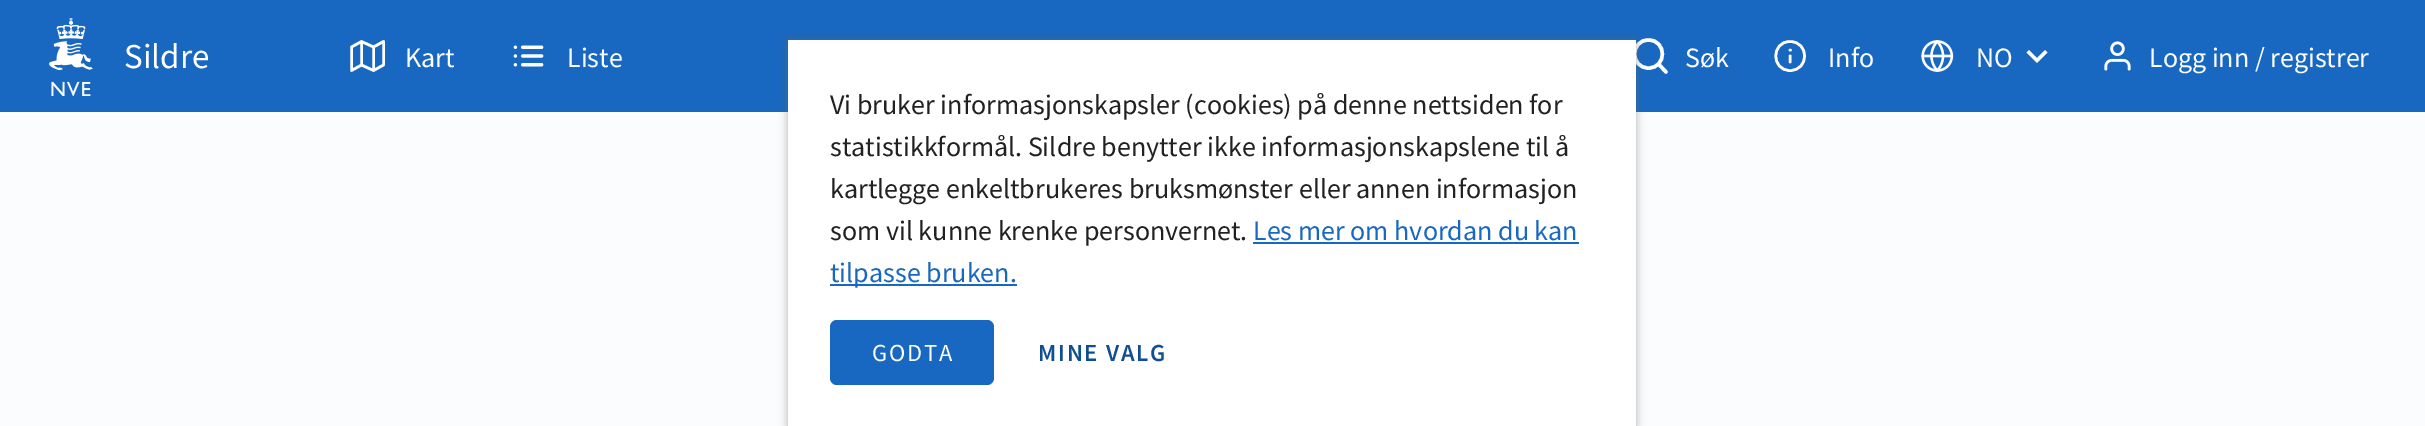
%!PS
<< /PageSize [2425 426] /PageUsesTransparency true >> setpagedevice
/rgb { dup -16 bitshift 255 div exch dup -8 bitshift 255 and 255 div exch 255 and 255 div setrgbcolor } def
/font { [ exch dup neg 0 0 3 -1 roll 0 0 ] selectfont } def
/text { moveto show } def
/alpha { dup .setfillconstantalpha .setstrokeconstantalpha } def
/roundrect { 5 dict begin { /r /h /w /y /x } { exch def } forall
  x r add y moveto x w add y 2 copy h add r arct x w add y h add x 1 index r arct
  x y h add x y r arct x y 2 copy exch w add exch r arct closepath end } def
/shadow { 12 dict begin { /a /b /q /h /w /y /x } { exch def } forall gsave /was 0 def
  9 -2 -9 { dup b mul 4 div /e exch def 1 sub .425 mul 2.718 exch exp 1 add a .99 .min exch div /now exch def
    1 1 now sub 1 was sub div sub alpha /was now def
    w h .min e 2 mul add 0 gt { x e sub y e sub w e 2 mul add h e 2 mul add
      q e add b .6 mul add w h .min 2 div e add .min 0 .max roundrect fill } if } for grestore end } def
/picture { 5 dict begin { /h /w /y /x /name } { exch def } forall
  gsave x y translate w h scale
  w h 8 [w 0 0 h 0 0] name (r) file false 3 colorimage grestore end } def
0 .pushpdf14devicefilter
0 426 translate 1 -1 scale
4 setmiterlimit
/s1 { /SourceSansPro-Regular 35 font 16#FFFFFF rgb } def
/s2 { /SourceSansPro-Regular 28 font 16#FFFFFF rgb } def
/s3 { /SourceSansPro-Regular 28 font 16#212121 rgb } def
/s4 { /SourceSansPro-Regular 28 font 16#1867C0 rgb } def
16#FAFCFE rgb
0 0 2425 426 rectfill
16#1867C0 rgb
0 0 2425 112 rectfill
(pic1.raw) 49 18 44 78 picture
s1
(Sildre) 124 68 text
2.6 setlinewidth
1 setlinecap
1 setlinejoin
351.5 47 moveto 351.5 70.5 lineto 361.5 65 lineto 373.5 70.5 lineto 383.5 65 lineto 383.5 41.5 lineto 373.5 47 lineto 361.5 41.5 lineto closepath 361.5 41.5 moveto 361.5 65 lineto 373.5 47 moveto 373.5 70.5 lineto stroke
s2
(Kart) 405 67 text
(pic2.raw) 513 45 31 22 picture
(Liste) 567 67 text
3.5 setlinewidth
1648.5 68 moveto 1667 68 1667 40 1648.5 40 curveto 1630 40 1630 68 1648.5 68 curveto closepath 1666 72 moveto 1658.5 64 lineto stroke
(Søk) 1685 67 text
2.6 setlinewidth
1790 70.5 moveto 1809.5 70.5 1809.5 41.5 1790 41.5 curveto 1771 41.5 1771 70.5 1790 70.5 curveto closepath 1790 62 moveto 1790 56 lineto 1790 50 moveto 1790.5 50 lineto stroke
(Info) 1828 67 text
(pic3.raw) 1921 40 33 32 picture
(NO) 1976 67 text
2029 50 moveto 2037 58 lineto 2045 50 lineto 2047.5 52.5 lineto 2037 63 lineto 2026.5 52.5 lineto closepath fill
(pic4.raw) 2104 41 27 30 picture
(Logg inn / registrer) 2149 67 text
16#646464 rgb
788 40 848 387 0 4.5 0.5 shadow
16#FFFFFF rgb
788 40 848 386 rectfill
s3
(Vi bruker informasjonskapsler \(cookies\) på denne nettsiden for) 830 114 text
(statistikkformål. Sildre benytter ikke informasjonskapslene til å) 830 156 text
(kartlegge enkeltbrukeres bruksmønster eller annen informasjon) 830 198 text
(som vil kunne krenke personvernet.) 830 240 text
s4
(Les mer om hvordan du kan) 1253 240 text
1253 242 326 2 rectfill
830 284 187 2 rectfill
(tilpasse bruken.) 830 282 text
830 320 164 65 7 roundrect fill
/SourceSansPro-Regular 24.5 font
16#FFFFFF rgb
872 361 moveto 1.75 0 (GODTA) ashow
/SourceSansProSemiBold-SemiBold 24.5 font
16#104E93 rgb
1038 361 moveto 1.75 0 (MINE VALG) ashow
.poppdf14devicefilter showpage
